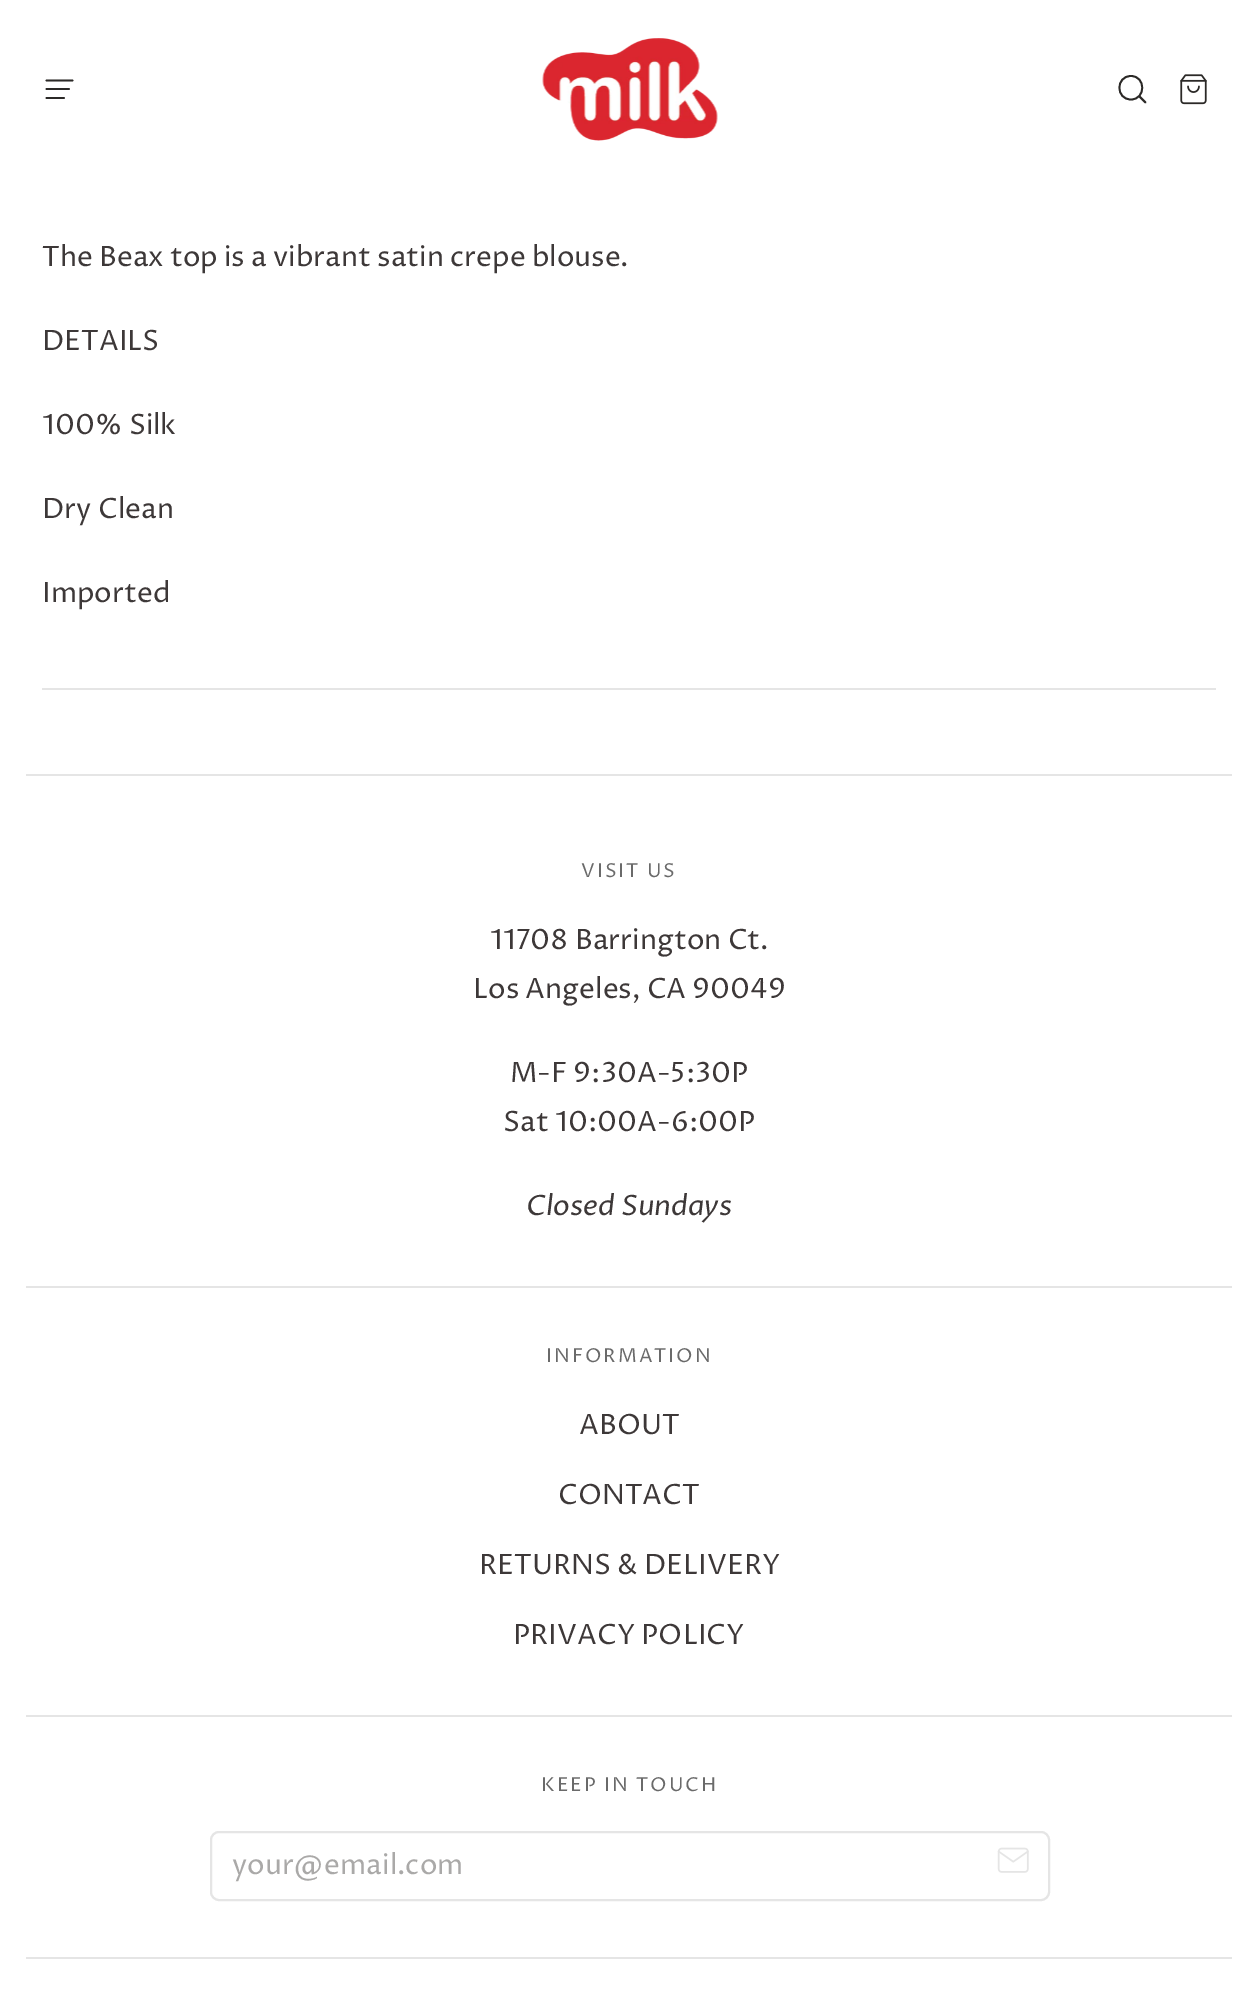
%!PS
<< /PageSize [1258 2014] >> setpagedevice
/rgb { dup -16 bitshift 255 div exch dup -8 bitshift 255 and 255 div exch 255 and 255 div setrgbcolor } def
/font { [ exch dup neg 0 0 3 -1 roll 0 0 ] selectfont } def
/text { moveto show } def
/roundrect { 5 dict begin { /r /h /w /y /x } { exch def } forall
  x r add y moveto x w add y 2 copy h add r arct x w add y h add x 1 index r arct
  x y h add x y r arct x y 2 copy exch w add exch r arct closepath end } def
/picture { 5 dict begin { /h /w /y /x /name } { exch def } forall
  gsave x y translate w h scale
  w h 8 [w 0 0 h 0 0] name (r) file false 3 colorimage grestore end } def
0 2014 translate 1 -1 scale
4 setmiterlimit
/s1 { /ProzaLibre-Regular 28 font 16#3D3838 rgb } def
/s2 { /ProzaLibre-Italic 28 font 16#3D3838 rgb } def
/s3 { /ProzaLibre-Regular 28 font 16#AAA9A8 rgb } def
16#FFFFFF rgb
0 0 1258 2014 rectfill
16#2B2927 rgb
1.8 setlinewidth
1 setlinecap
1 setlinejoin
46.5 80.5 moveto 72.5 80.5 lineto 46.5 89 moveto 69 89 lineto 46.5 98 moveto 64 98 lineto stroke
(pic1.raw) 542 38 176 103 picture
1131 76 moveto 1115.5 76 1115.5 99.5 1131 99.5 curveto 1146 99.5 1146 76 1131 76 curveto closepath 1145.5 102.5 moveto 1139 96 lineto closepath stroke
(pic2.raw) 1180 74 27 31 picture
s1
(The Beax top is a vibrant satin crepe blouse.) 42 266 text
(DETAILS) 42 350 text
(100% Silk) 42 434 text
(Dry Clean) 42 518 text
(Imported) 42 602 text
16#E5E5E5 rgb
42 688 1174 2 rectfill
26 774 1206 2 rectfill
/ProzaLibre-Regular 19.25 font
16#6A6A6A rgb
581 877 moveto 2 0 (VISIT US) ashow
s1
(11708 Barrington Ct.) 490 949 text
(Los Angeles, CA 90049) 473 998 text
(M-F 9:30A-5:30P) 510 1082 text
(Sat 10:00A-6:00P) 503 1131 text
s2
(Closed Sundays) 526 1215 text
16#E5E5E5 rgb
26 1286 1206 2 rectfill
/ProzaLibre-Regular 19.25 font
16#6A6A6A rgb
546 1362 moveto 2 0 (INFORMATION) ashow
s1
(ABOUT) 579 1434 text
(CONTACT) 558 1504 text
(RETURNS & DELIVERY) 479 1574 text
(PRIVACY POLICY) 513 1644 text
16#E5E5E5 rgb
26 1715 1206 2 rectfill
/ProzaLibre-Regular 19.25 font
16#6A6A6A rgb
541 1791 moveto 2 0 (KEEP IN TOUCH) ashow
16#E5E5E5 rgb
2 setlinewidth
0 setlinecap
0 setlinejoin
211 1832 838 68 8 roundrect stroke
s3
(your@email.com) 232 1874 text
(pic3.raw) 997 1847 32 26 picture
16#E5E5E5 rgb
26 1957 1206 2 rectfill
showpage
